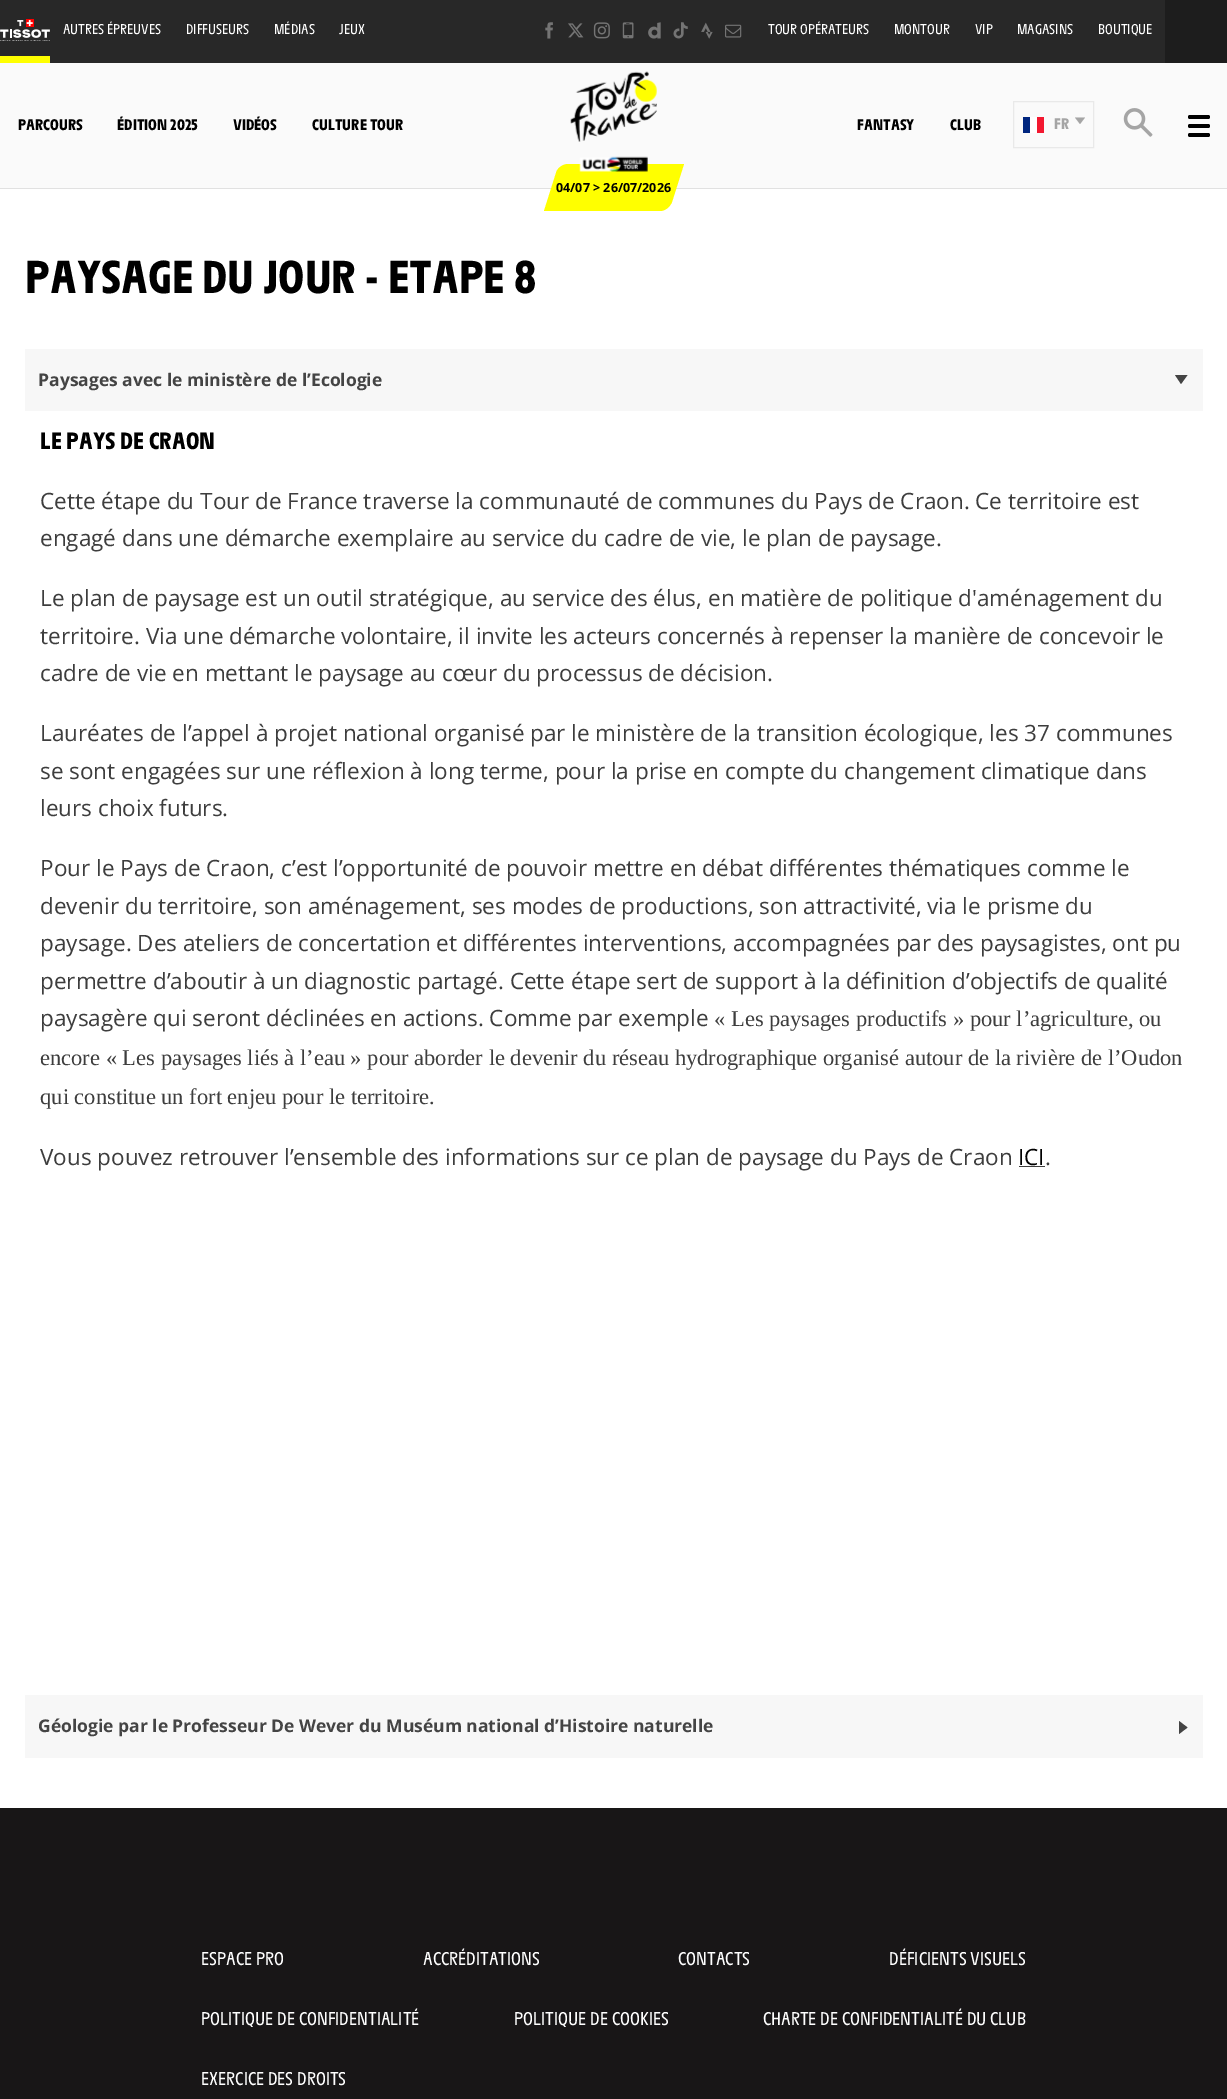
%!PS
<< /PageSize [1227 2099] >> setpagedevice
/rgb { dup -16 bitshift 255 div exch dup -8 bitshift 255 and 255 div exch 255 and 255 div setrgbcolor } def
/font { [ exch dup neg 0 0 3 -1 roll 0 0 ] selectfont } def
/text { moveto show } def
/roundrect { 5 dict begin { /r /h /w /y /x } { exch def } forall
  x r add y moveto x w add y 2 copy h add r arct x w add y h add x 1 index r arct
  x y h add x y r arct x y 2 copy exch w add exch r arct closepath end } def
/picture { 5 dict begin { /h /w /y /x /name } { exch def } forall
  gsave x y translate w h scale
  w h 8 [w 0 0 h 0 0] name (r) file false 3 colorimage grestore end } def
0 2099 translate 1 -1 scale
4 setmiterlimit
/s1 { /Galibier-Regular 15 font 16#FFFFFF rgb } def
/s2 { /Galibier-Bold 16.25 font 16#000000 rgb } def
/s3 { /Galibier-Bold 16.25 font 16#A5A5A5 rgb } def
/s4 { /OpenSans-Bold 12.5 font 16#000000 rgb } def
/s5 { /Galibier-Bold 48.75 font 16#000000 rgb } def
/s6 { /OpenSans-Bold 17.5 font 16#444444 rgb } def
/s7 { /Galibier-Bold 25 font 16#000000 rgb } def
/s8 { /OpenSans-Regular 22.5 font 16#3D3D3D rgb } def
/s9 { /LiberationSerif-Regular 22.5 font 16#3D3D3D rgb } def
/s10 { /OpenSans-Regular 22.5 font 16#000000 rgb } def
/s11 { /Galibier-Regular 19.5 font 16#FFFFFF rgb } def
16#FFFFFF rgb
0 0 1227 2099 rectfill
16#FAFAFA rgb
0 63 1227 125 rectfill
16#E1E1E1 rgb
0 188 1227 1 rectfill
16#282828 rgb
0 0 1165 63 rectfill
16#1D1D1D rgb
1165 0 62 63 rectfill
(pic1.raw) 0 19 50 22 picture
16#FFFF00 rgb
0 56 50 7 rectfill
s1
(AUTRES ÉPREUVES) 63 34 text
(DIFFUSEURS) 186 34 text
(MÉDIAS) 274 34 text
(JEUX) 339 34 text
(pic2.raw) 545 22 8 17 picture
(pic3.raw) 568 23 16 15 picture
(pic4.raw) 593 22 17 17 picture
(pic5.raw) 622 22 12 17 picture
(pic6.raw) 648 22 13 17 picture
(pic7.raw) 673 22 15 17 picture
(pic8.raw) 701 22 12 17 picture
(pic9.raw) 725 24 17 14 picture
(TOUR OPÉRATEURS) 768 34 text
(MONTOUR) 894 34 text
(VIP) 975 34 text
(MAGASINS) 1017 34 text
(BOUTIQUE) 1098 34 text
s2
(PARCOURS) 18 130 text
(ÉDITION 2025) 117 130 text
(VIDÉOS) 233 130 text
(CULTURE TOUR) 312 130 text
(FANTASY) 857 130 text
(CLUB) 950 130 text
16#E9E9E9 rgb
1013.5 101.5 80 46 rectstroke
16#FFFFFF rgb
1030 117 7 16 rectfill
16#00267F rgb
1023 117 7 16 rectfill
16#F31830 rgb
1037 117 7 16 rectfill
s3
(FR) 1054 129 text
1075 117.5 moveto 1085 117.5 lineto 1080 124 lineto closepath fill
(pic10.raw) 1123 108 30 29 picture
16#000000 rgb
1188 115 22 4 2 roundrect fill
1188 124 22 4 2 roundrect fill
1188 133 22 4 2 roundrect fill
(pic11.raw) 570 71 87 71 picture
16#FFFF00 rgb
568 164 moveto 684 164 lineto 672 202 lineto 670 207 665 211 660 211 curveto 544 211 lineto 556 173 lineto 557 168 563 164 568 164 curveto closepath fill
(pic12.raw) 579 156 69 16 picture
s4
(04/07 > 26/07/2026) 556 192 text
s5
(PAYSAGE DU JOUR - ETAPE 8) 25 293 text
16#F7F7F7 rgb
25 349 1178 62 rectfill
s6
(Paysages avec le ministère de l’Ecologie) 38 386 text
1175 375 moveto 1187.5 375 lineto 1181 384 lineto closepath fill
s7
(LE PAYS DE CRAON) 40 449 text
s8
(Cette étape du Tour de France traverse la communauté de communes du Pays de Craon. Ce territoire est) 40 509 text
(engagé dans une démarche exemplaire au service du cadre de vie, le plan de paysage.) 40 546 text
(Le plan de paysage est un outil stratégique, au service des élus, en matière de politique d'aménagement du) 40 606 text
(territoire. Via une démarche volontaire, il invite les acteurs concernés à repenser la manière de concevoir le) 40 644 text
(cadre de vie en mettant le paysage au cœur du processus de décision.) 40 681 text
(Lauréates de l’appel à projet national organisé par le ministère de la transition écologique, les 37 communes) 40 741 text
(se sont engagées sur une réflexion à long terme, pour la prise en compte du changement climatique dans) 40 779 text
(leurs choix futurs.) 40 816 text
(Pour le Pays de Craon, c’est l’opportunité de pouvoir mettre en débat différentes thématiques comme le) 40 876 text
(devenir du territoire, son aménagement, ses modes de productions, son attractivité, via le prisme du) 40 914 text
(paysage. Des ateliers de concertation et différentes interventions, accompagnées par des paysagistes, ont pu) 40 951 text
(permettre d’aboutir à un diagnostic partagé. Cette étape sert de support à la définition d’objectifs de qualité) 40 989 text
(paysagère qui seront déclinées en actions. Comme par exemple) 40 1026 text
s9
(« Les paysages productifs » pour l’agriculture, ou) 714 1026 text
(encore « Les paysages liés à l’eau » pour aborder le devenir du réseau hydrographique organisé autour de la rivière de l’Oudon) 40 1065 text
(qui constitue un fort enjeu pour le territoire.) 40 1104 text
s8
(Vous pouvez retrouver l’ensemble des informations sur ce plan de paysage du Pays de Craon) 40 1165 text
s10
(ICI) 1018 1165 text
16#3D3D3D rgb
1019 1166 26 1 rectfill
(.) 1045 1165 text
16#F7F7F7 rgb
25 1695 1178 63 rectfill
s6
(Géologie par le Professeur De Wever du Muséum national d’Histoire naturelle) 38 1732 text
1179 1734 moveto 1179 1721 lineto 1187.5 1727.5 lineto closepath fill
16#181617 rgb
0 1808 1227 291 rectfill
s11
(ESPACE PRO) 201 1965 text
(ACCRÉDITATIONS) 423 1965 text
(CONTACTS) 678 1965 text
(DÉFICIENTS VISUELS) 889 1965 text
(POLITIQUE DE CONFIDENTIALITÉ) 201 2025 text
(POLITIQUE DE COOKIES) 514 2025 text
(CHARTE DE CONFIDENTIALITÉ DU CLUB) 763 2025 text
(EXERCICE DES DROITS) 201 2085 text
showpage
